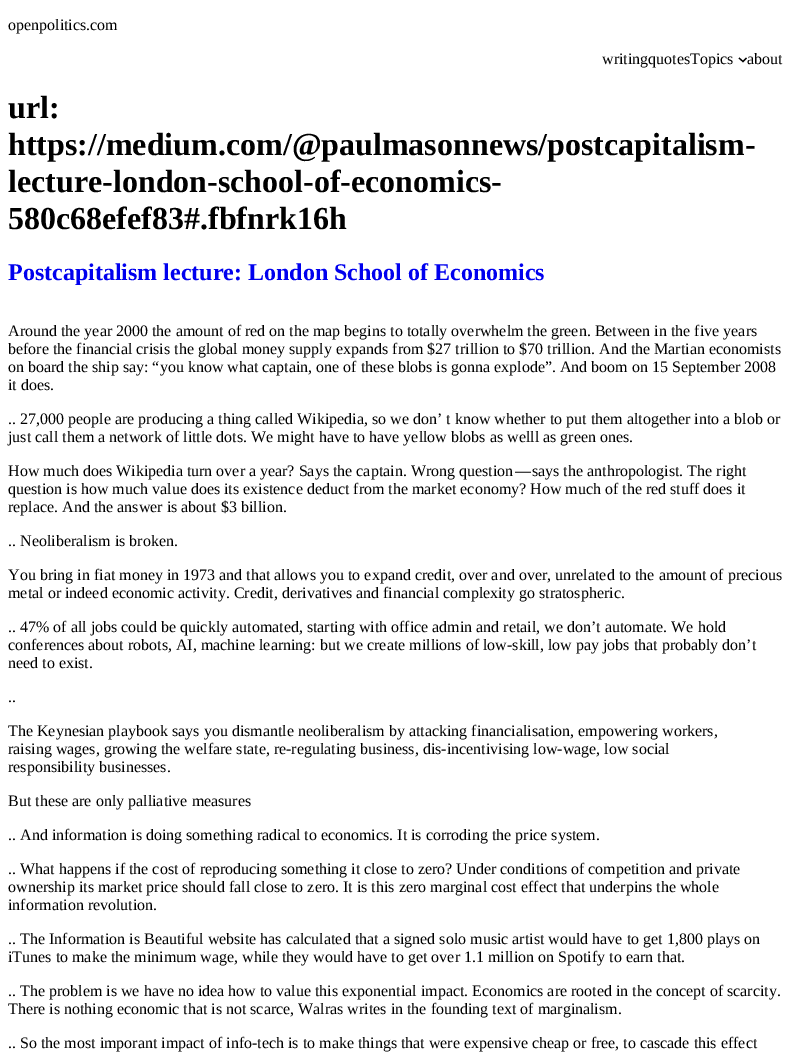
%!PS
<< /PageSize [791 1055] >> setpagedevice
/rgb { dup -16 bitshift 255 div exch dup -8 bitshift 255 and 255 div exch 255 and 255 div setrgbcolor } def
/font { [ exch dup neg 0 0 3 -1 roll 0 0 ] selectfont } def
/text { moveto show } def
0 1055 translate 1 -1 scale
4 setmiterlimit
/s1 { /LiberationSerif-Regular 16 font 16#000000 rgb } def
/s2 { /LiberationSerif-Bold 32 font 16#000000 rgb } def
/s3 { /LiberationSerif-Bold 24 font 16#0000EE rgb } def
16#FFFFFF rgb
0 0 791 1055 rectfill
s1
(openpolitics.com) 8 30 text
(writingquotesTopics) 602 64 text
1.2 setlinewidth
739 58 moveto 743 61.5 lineto 746.5 58 lineto stroke
(about) 747 64 text
s2
(url:) 8 118 text
(https://medium.com/@paulmasonnews/postcapitalism-) 8 155 text
(lecture-london-school-of-economics-) 8 192 text
(580c68efef83#.fbfnrk16h) 8 229 text
s3
(Postcapitalism lecture: London School of Economics) 8 280 text
s1
(Around the year 2000 the amount of red on the map begins to totally overwhelm the green. Between in the five years) 8 336 text
(before the financial crisis the global money supply expands from $27 trillion to $70 trillion. And the Martian economists) 8 354 text
(on board the ship say: “you know what captain, one of these blobs is gonna explode”. And boom on 15 September 2008) 8 372 text
(it does.) 8 390 text
(.. 27,000 people are producing a thing called Wikipedia, so we don’ t know whether to put them altogether into a blob or) 8 424 text
(just call them a network of little dots. We might have to have yellow blobs as welll as green ones.) 8 442 text
(How much does Wikipedia turn over a year? Says the captain. Wrong question — says the anthropologist. The right) 8 476 text
(question is how much value does its existence deduct from the market economy? How much of the red stuff does it) 8 494 text
(replace. And the answer is about $3 billion.) 8 512 text
(.. Neoliberalism is broken.) 8 546 text
(You bring in fiat money in 1973 and that allows you to expand credit, over and over, unrelated to the amount of precious) 8 580 text
(metal or indeed economic activity. Credit, derivatives and financial complexity go stratospheric.) 8 598 text
(.. 47% of all jobs could be quickly automated, starting with office admin and retail, we don’t automate. We hold) 8 632 text
(conferences about robots, AI, machine learning: but we create millions of low-skill, low pay jobs that probably don’t) 8 650 text
(need to exist.) 8 668 text
(..) 8 702 text
(The Keynesian playbook says you dismantle neoliberalism by attacking financialisation, empowering workers,) 8 736 text
(raising wages, growing the welfare state, re-regulating business, dis-incentivising low-wage, low social) 8 754 text
(responsibility businesses.) 8 772 text
(But these are only palliative measures) 8 806 text
(.. And information is doing something radical to economics. It is corroding the price system.) 8 840 text
(.. What happens if the cost of reproducing something it close to zero? Under conditions of competition and private) 8 874 text
(ownership its market price should fall close to zero. It is this zero marginal cost effect that underpins the whole) 8 892 text
(information revolution.) 8 910 text
(.. The Information is Beautiful website has calculated that a signed solo music artist would have to get 1,800 plays on) 8 944 text
(iTunes to make the minimum wage, while they would have to get over 1.1 million on Spotify to earn that.) 8 962 text
(.. The problem is we have no idea how to value this exponential impact. Economics are rooted in the concept of scarcity.) 8 996 text
(There is nothing economic that is not scarce, Walras writes in the founding text of marginalism.) 8 1014 text
(.. So the most imporant impact of info-tech is to make things that were expensive cheap or free, to cascade this effect) 8 1048 text
showpage
